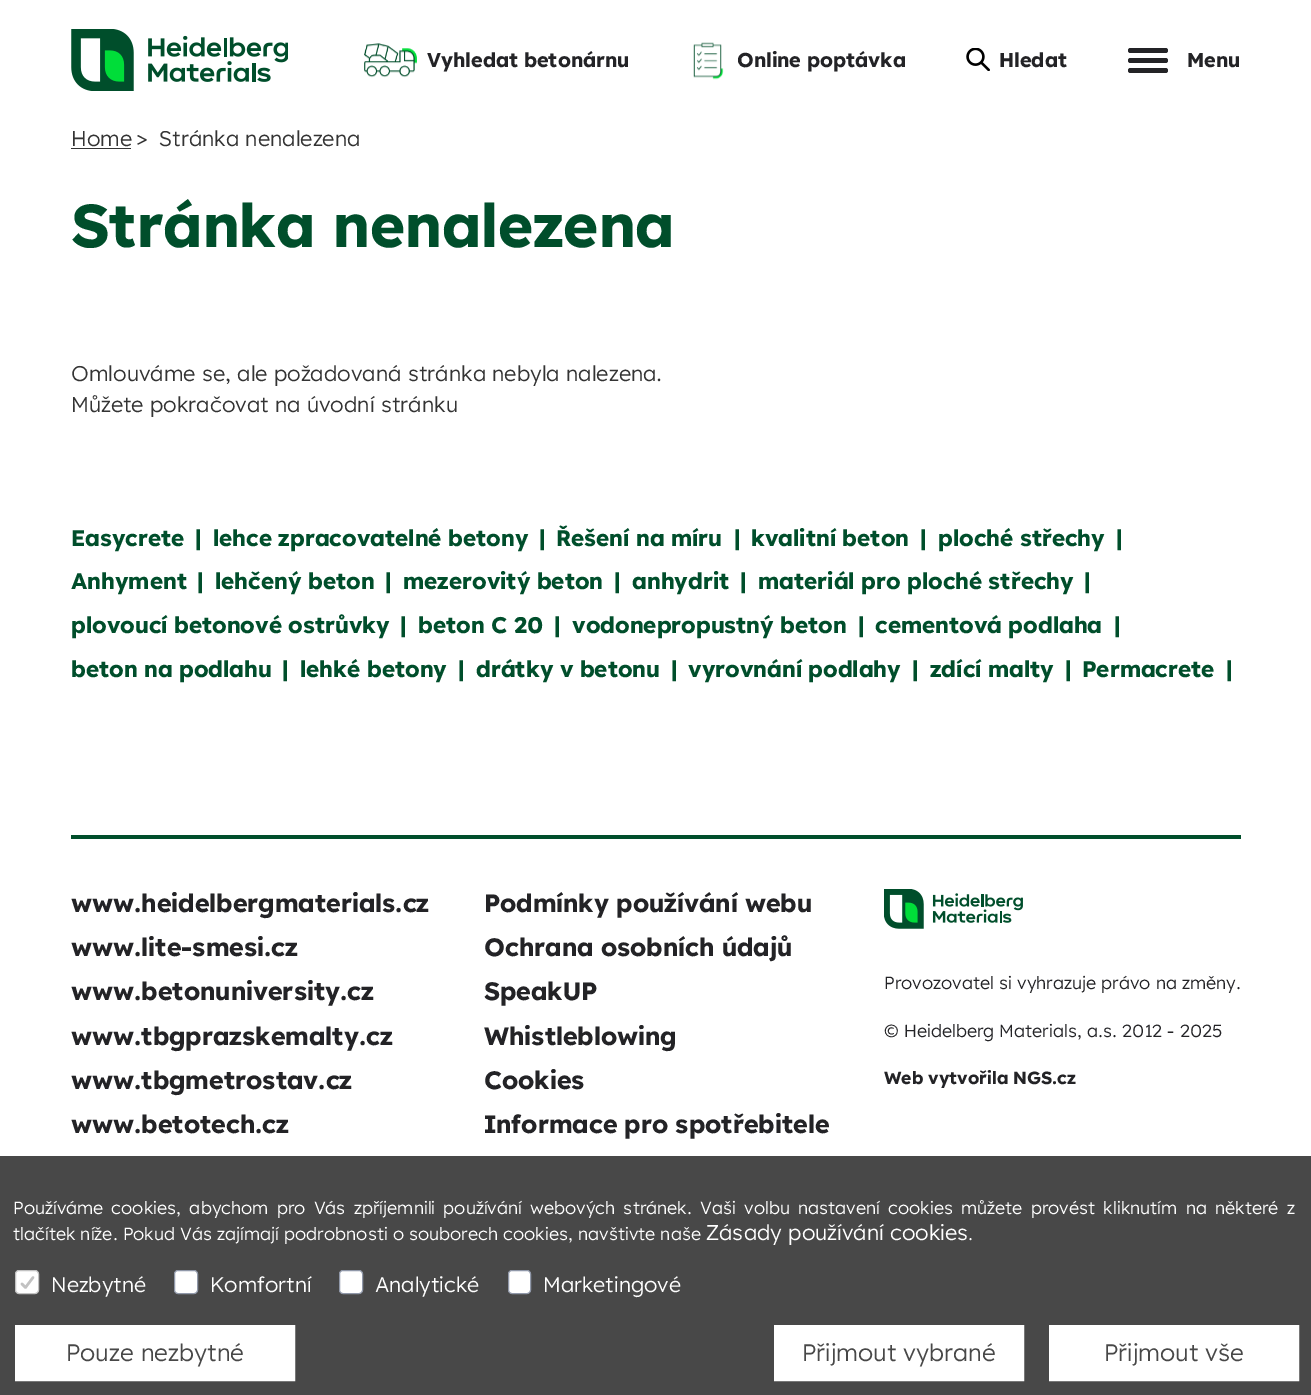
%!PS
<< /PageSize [1311 1395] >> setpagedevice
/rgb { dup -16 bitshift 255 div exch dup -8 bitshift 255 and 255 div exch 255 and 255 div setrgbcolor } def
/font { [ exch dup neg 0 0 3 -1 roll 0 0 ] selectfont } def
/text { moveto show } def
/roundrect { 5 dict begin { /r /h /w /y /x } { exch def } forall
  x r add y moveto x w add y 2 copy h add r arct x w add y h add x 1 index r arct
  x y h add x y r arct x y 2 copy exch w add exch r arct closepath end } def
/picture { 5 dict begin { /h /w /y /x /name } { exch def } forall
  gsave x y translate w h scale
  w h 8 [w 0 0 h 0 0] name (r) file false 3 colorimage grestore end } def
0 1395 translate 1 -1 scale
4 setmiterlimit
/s1 { /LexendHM-Bold 20 font 16#232326 rgb } def
/s2 { /LexendHM-Regular 21.25 font 16#343434 rgb } def
/s3 { /LexendHM-Bold 60 font 16#004E2B rgb } def
/s4 { /LexendHM-Bold 22.5 font 16#004E2B rgb } def
/s5 { /LexendHM-Bold 25 font 16#232326 rgb } def
/s6 { /LexendHM-Regular 17.5 font 16#232326 rgb } def
/s7 { /LexendHM-Bold 17.5 font 16#232326 rgb } def
/s8 { /LexendHM-Regular 17.5 font 16#FFFFFF rgb } def
/s9 { /LexendHM-Regular 21.25 font 16#FFFFFF rgb } def
/s10 { /LexendHM-Regular 21 font 16#FFFFFF rgb } def
/s11 { /LexendHM-Regular 23.75 font 16#484848 rgb } def
16#FFFFFF rgb
0 0 1311 1395 rectfill
(pic1.raw) 71 29 217 62 picture
(pic2.raw) 364 43 53 35 picture
s1
(Vyhledat betonárnu) 427 67 text
(pic3.raw) 693 42 31 38 picture
(Online poptávka) 737 67 text
(pic4.raw) 966 48 24 23 picture
(Hledat) 999 67 text
1128 58 40 5 2.5 roundrect fill
1128 48 40 5 2.5 roundrect fill
1128 68 40 5 2.5 roundrect fill
(Menu) 1187 67 text
s2
(Home) 71 146 text
71 148 60 1 rectfill
(>) 136 146 text
(Stránka nenalezena) 159 146 text
s3
(Stránka nenalezena) 71 247 text
s2
(Omlouváme se, ale požadovaná stránka nebyla nalezena.) 71 381 text
(Můžete pokračovat na úvodní stránku) 71 412 text
s4
(Easycrete) 71 546 text
(|) 194 546 text
(lehce zpracovatelné betony) 213 546 text
(|) 538 546 text
(Řešení na míru) 556 546 text
(|) 733 546 text
(kvalitní beton) 751 546 text
(|) 919 546 text
(ploché střechy) 938 546 text
(|) 1115 546 text
(Anhyment) 71 589 text
(|) 196 589 text
(lehčený beton) 215 589 text
(|) 384 589 text
(mezerovitý beton) 403 589 text
(|) 613 589 text
(anhydrit) 632 589 text
(|) 739 589 text
(materiál pro ploché střechy) 758 589 text
(|) 1083 589 text
(plovoucí betonové ostrůvky) 71 633 text
(|) 399 633 text
(beton C 20) 418 633 text
(|) 553 633 text
(vodonepropustný beton) 572 633 text
(|) 857 633 text
(cementová podlaha) 875 633 text
(|) 1113 633 text
(beton na podlahu) 71 677 text
(|) 281 677 text
(lehké betony) 300 677 text
(|) 457 677 text
(drátky v betonu) 476 677 text
(|) 670 677 text
(vyrovnání podlahy) 688 677 text
(|) 911 677 text
(zdící malty) 930 677 text
(|) 1064 677 text
(Permacrete) 1082 677 text
(|) 1225 677 text
71 835 1170 4 rectfill
s5
(www.heidelbergmaterials.cz) 71 912 text
(www.lite-smesi.cz) 71 956 text
(www.betonuniversity.cz) 71 1000 text
(www.tbgprazskemalty.cz) 71 1045 text
(www.tbgmetrostav.cz) 71 1089 text
(www.betotech.cz) 71 1133 text
(Podmínky používání webu) 484 912 text
(Ochrana osobních údajů) 484 956 text
(SpeakUP) 484 1000 text
(Whistleblowing) 484 1045 text
(Cookies) 484 1089 text
(Informace pro spotřebitele) 484 1133 text
(pic5.raw) 884 889 139 40 picture
s6
(Provozovatel si vyhrazuje právo na změny.) 884 989 text
(© Heidelberg Materials, a.s. 2012 - 2025) 884 1037 text
s7
(Web vytvořila NGS.cz) 884 1084 text
16#484848 rgb
0 1156 1311 239 rectfill
/LexendHM-Regular 17.5 font
16#FFFFFF rgb
13 1214 moveto 3.1 0 32 (Používáme cookies, abychom pro Vás zpříjemnili používání webových stránek. Vaši volbu nastavení cookies můžete provést kliknutím na některé z) widthshow
(tlačítek níže. Pokud Vás zajímají podrobnosti o souborech cookies, navštivte naše) 13 1240 text
s9
(Zásady používání cookies) 706 1240 text
s8
(.) 968 1240 text
15.5 1270.5 23 23 3.5 roundrect gsave fill grestore
16#C2C2C2 rgb
stroke
2.5 setlinewidth
1 setlinecap
1 setlinejoin
22 1284 moveto 25.5 1287.5 lineto 33 1277.5 lineto stroke
s10
(Nezbytné) 51 1292 text
174.5 1270.5 23 23 3.5 roundrect gsave fill grestore
16#9098A9 rgb
1 setlinewidth
0 setlinecap
0 setlinejoin
stroke
s10
(Komfortní) 210 1292 text
339.5 1270.5 23 23 3.5 roundrect gsave fill grestore
16#9098A9 rgb
stroke
s10
(Analytické) 375 1292 text
508.5 1270.5 22 23 3.5 roundrect gsave fill grestore
16#9098A9 rgb
stroke
s10
(Marketingové) 543 1292 text
15.5 1325.5 moveto 294.5 1325.5 lineto 294.5 1380.5 lineto 15.5 1380.5 lineto closepath gsave fill grestore
stroke
s11
(Pouze nezbytné) 66 1361 text
16#FFFFFF rgb
774.5 1325.5 moveto 1023.5 1325.5 lineto 1023.5 1380.5 lineto 774.5 1380.5 lineto closepath gsave fill grestore
stroke
s11
(Přijmout vybrané) 802 1361 text
16#FFFFFF rgb
1049.5 1325.5 moveto 1298.5 1325.5 lineto 1298.5 1380.5 lineto 1049.5 1380.5 lineto closepath gsave fill grestore
stroke
s11
(Přijmout vše) 1104 1361 text
showpage
